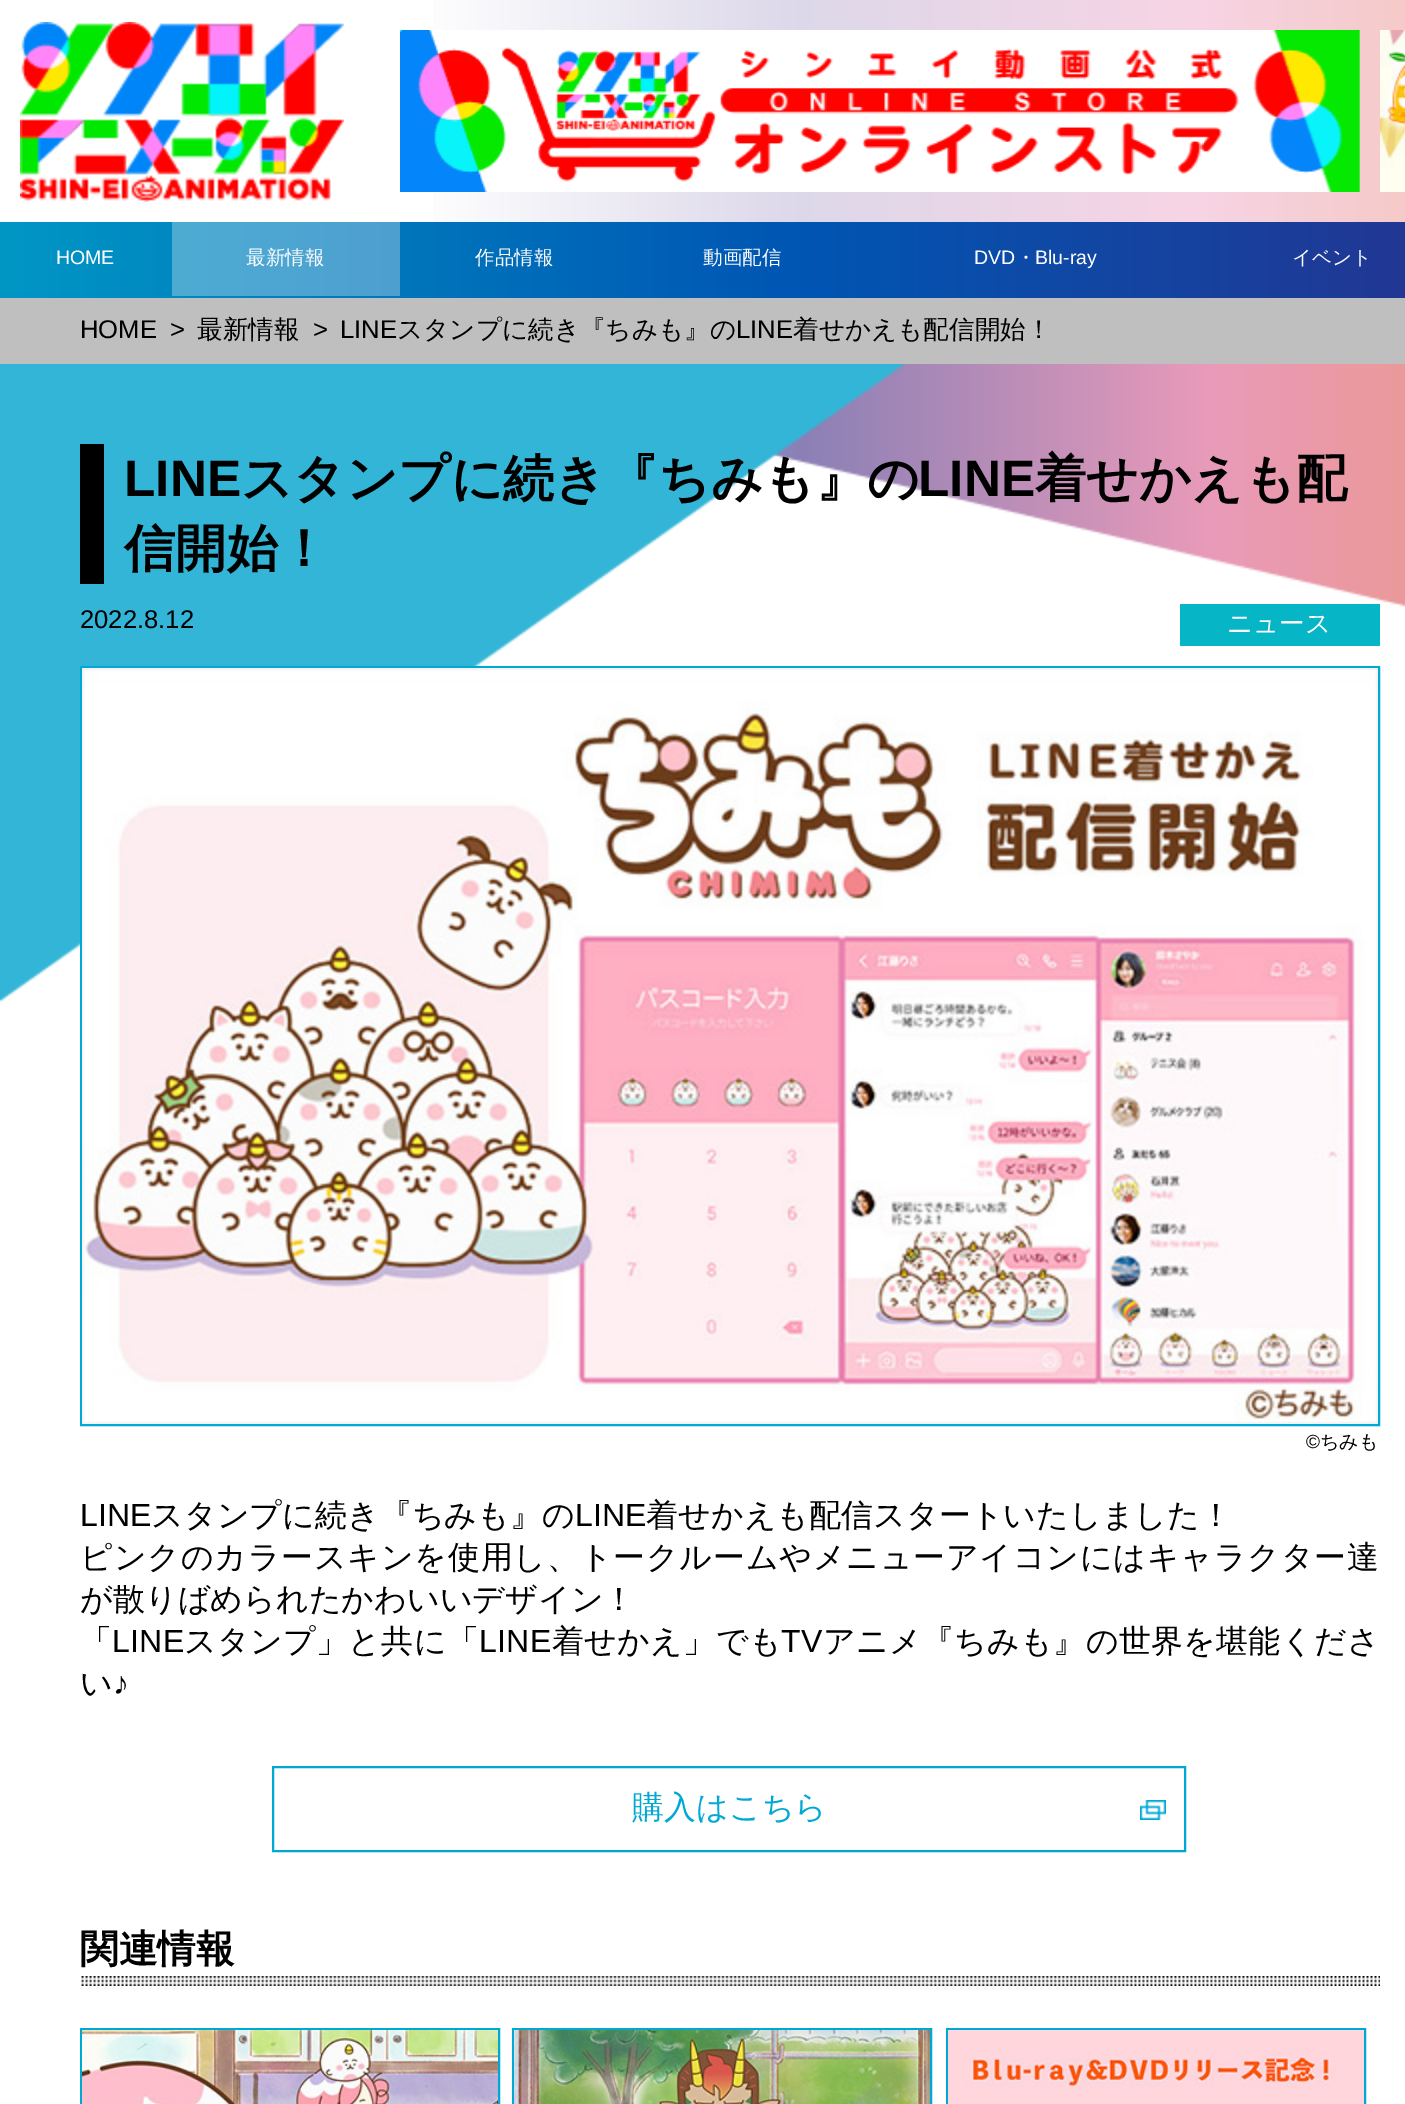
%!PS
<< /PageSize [1405 2104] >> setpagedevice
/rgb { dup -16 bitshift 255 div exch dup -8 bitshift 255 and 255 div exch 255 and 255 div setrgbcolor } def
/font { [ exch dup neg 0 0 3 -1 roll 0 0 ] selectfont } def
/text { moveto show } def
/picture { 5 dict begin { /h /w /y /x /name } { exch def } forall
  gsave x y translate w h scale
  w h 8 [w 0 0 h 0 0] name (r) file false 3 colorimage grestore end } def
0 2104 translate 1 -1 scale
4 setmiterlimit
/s1 { /LiberationSans-Regular 19.5 font 16#FFFFFF rgb } def
/s2 { /WenQuanYiZenHei-Medium 19.5 font 16#FFFFFF rgb } def
/s3 { /LiberationSans-Regular 25.6 font 16#000000 rgb } def
/s4 { /WenQuanYiZenHei-Medium 25.6 font 16#000000 rgb } def
/s5 { /LiberationSans-Bold 51.25 font 16#000000 rgb } def
/s6 { /WenQuanYiZenHei-Bold 51.25 font 16#000000 rgb } def
/s7 { /WenQuanYiZenHei-Medium 25.6 font 16#FFFFFF rgb } def
/s8 { /LiberationSans-Regular 19 font 16#000000 rgb } def
/s9 { /WenQuanYiZenHei-Medium 19 font 16#000000 rgb } def
/s10 { /LiberationSans-Regular 32 font 16#000000 rgb } def
/s11 { /WenQuanYiZenHei-Medium 32 font 16#000000 rgb } def
/s12 { /WenQuanYiZenHei-Medium 32 font 16#00A8D4 rgb } def
/s13 { /WenQuanYiZenHei-Bold 38.5 font 16#000000 rgb } def
16#FFFFFF rgb
0 0 1405 2104 rectfill
gsave 433 0 moveto 1405 0 lineto 1405 222 lineto 433 222 lineto closepath clip newpath
<< /ShadingType 2 /ColorSpace /DeviceRGB /Coords [0 149 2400 149] /Extend [true true] /Function << /FunctionType 3 /Domain [0 1] /Functions [<< /FunctionType 2 /Domain [0 1] /C0 [1 1 1] /C1 [1 1 1] /N 1 >> << /FunctionType 2 /Domain [0 1] /C0 [1 1 1] /C1 [0.867 0.851 0.918] /N 1 >> << /FunctionType 2 /Domain [0 1] /C0 [0.867 0.851 0.918] /C1 [0.969 0.831 0.894] /N 1 >> << /FunctionType 2 /Domain [0 1] /C0 [0.969 0.831 0.894] /C1 [0.953 0.757 0.678] /N 1 >> << /FunctionType 2 /Domain [0 1] /C0 [0.953 0.757 0.678] /C1 [0.984 0.957 0.671] /N 1 >> << /FunctionType 2 /Domain [0 1] /C0 [0.984 0.957 0.671] /C1 [0.522 0.765 0.576] /N 1 >>] /Bounds [0.17 0.33 0.5 0.67 0.83] /Encode [0 1 0 1 0 1 0 1 0 1 0 1] >> >> shfill grestore
(pic1.raw) 20 22 324 180 picture
(pic2.raw) 400 30 960 162 picture
(pic3.raw) 1380 30 25 162 picture
gsave 0 222 moveto 1405 222 lineto 1405 298 lineto 0 298 lineto closepath clip newpath
<< /ShadingType 2 /ColorSpace /DeviceRGB /Coords [0 260 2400 260] /Extend [true true] /Function << /FunctionType 3 /Domain [0 1] /Functions [<< /FunctionType 2 /Domain [0 1] /C0 [0 0.592 0.773] /C1 [0 0.337 0.702] /N 1 >> << /FunctionType 2 /Domain [0 1] /C0 [0 0.337 0.702] /C1 [0.18 0.176 0.541] /N 1 >> << /FunctionType 2 /Domain [0 1] /C0 [0.18 0.176 0.541] /C1 [0.612 0.176 0.565] /N 1 >>] /Bounds [0.33 0.67] /Encode [0 1 0 1 0 1] >> >> shfill grestore
gsave 172 222 moveto 400 222 lineto 400 296 lineto 172 296 lineto closepath clip newpath
<< /ShadingType 2 /ColorSpace /DeviceRGB /Coords [0 260 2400 260] /Extend [true true] /Function << /FunctionType 3 /Domain [0 1] /Functions [<< /FunctionType 2 /Domain [0 1] /C0 [0.302 0.714 0.839] /C1 [0.302 0.537 0.792] /N 1 >> << /FunctionType 2 /Domain [0 1] /C0 [0.302 0.537 0.792] /C1 [0.427 0.424 0.678] /N 1 >> << /FunctionType 2 /Domain [0 1] /C0 [0.427 0.424 0.678] /C1 [0.729 0.424 0.694] /N 1 >>] /Bounds [0.33 0.67] /Encode [0 1 0 1 0 1] >> >> shfill grestore
s1
(HOME) 56 264 text
s2
(最新情報) 246 264 text
(作品情報) 475 264 text
(動画配信) 703 264 text
s1
(DVD) 974 264 text
s2
(・) 1016 264 text
s1
(Blu-ray) 1035 264 text
s2
(イベント) 1292 264 text
16#BFBFBF rgb
0 298 1405 66 rectfill
s3
(HOME) 80 338 text
(>) 170 338 text
s4
(最新情報) 197 338 text
s3
(>) 313 338 text
(LINE) 340 338 text
s4
(スタンプに続き『ちみも』の) 397 338 text
s3
(LINE) 736 338 text
s4
(着せかえも配信開始！) 793 338 text
(pic4.raw) 0 364 1405 639 picture
80 444 24 140 rectfill
s5
(LINE) 124 496 text
s6
(スタンプに続き『ちみも』の) 241 496 text
s5
(LINE) 918 496 text
s6
(着せかえも配) 1035 496 text
(信開始！) 124 566 text
s3
(2022.8.12) 80 628 text
16#06B5C6 rgb
1180 604 200 42 rectfill
s7
(ニュース) 1227 632 text
16#00A8D4 rgb
2 setlinewidth
81 667 1298 758 rectstroke
(pic5.raw) 82 668 1296 756 picture
s8
(©) 1306 1448 text
s9
(ちみも) 1320 1448 text
s10
(LINE) 80 1526 text
s11
(スタンプに続き『ちみも』の) 151 1526 text
s10
(LINE) 575 1526 text
s11
(着せかえも配信スタートいたしました！) 646 1526 text
80 1568 moveto 0.75 0 (ピンクのカラースキンを使用し、トークルームやメニューアイコンにはキャラクター達) ashow
(が散りばめられたかわいいデザイン！) 80 1610 text
80 1652 moveto 0.25 0 (「) ashow
/LiberationSans-Regular 32 font
112 1652 moveto 0.25 0 (LINE) ashow
/WenQuanYiZenHei-Medium 32 font
184 1652 moveto 0.25 0 (スタンプ」と共に「) ashow
/LiberationSans-Regular 32 font
479 1652 moveto 0.25 0 (LINE) ashow
/WenQuanYiZenHei-Medium 32 font
552 1652 moveto 0.25 0 (着せかえ」でも) ashow
/LiberationSans-Regular 32 font
781 1652 moveto 0.25 0 (TV) ashow
/WenQuanYiZenHei-Medium 32 font
823 1652 moveto 0.25 0 (アニメ『ちみも』の世界を堪能くださ) ashow
(い) 80 1694 text
s10
(♪) 113 1694 text
(pic6.raw) 1140 1800 26 20 picture
16#00A8D4 rgb
273 1767 912 84 rectstroke
s12
(購入はこちら) 632 1818 text
(pic7.raw) 81 1976 1299 10 picture
s13
(関連情報) 80 1962 text
16#00A8D4 rgb
81 2029 418 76 rectstroke
(pic8.raw) 82 2030 416 74 picture
513 2029 418 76 rectstroke
(pic9.raw) 514 2030 416 74 picture
947 2029 418 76 rectstroke
(pic10.raw) 948 2030 416 74 picture
showpage
